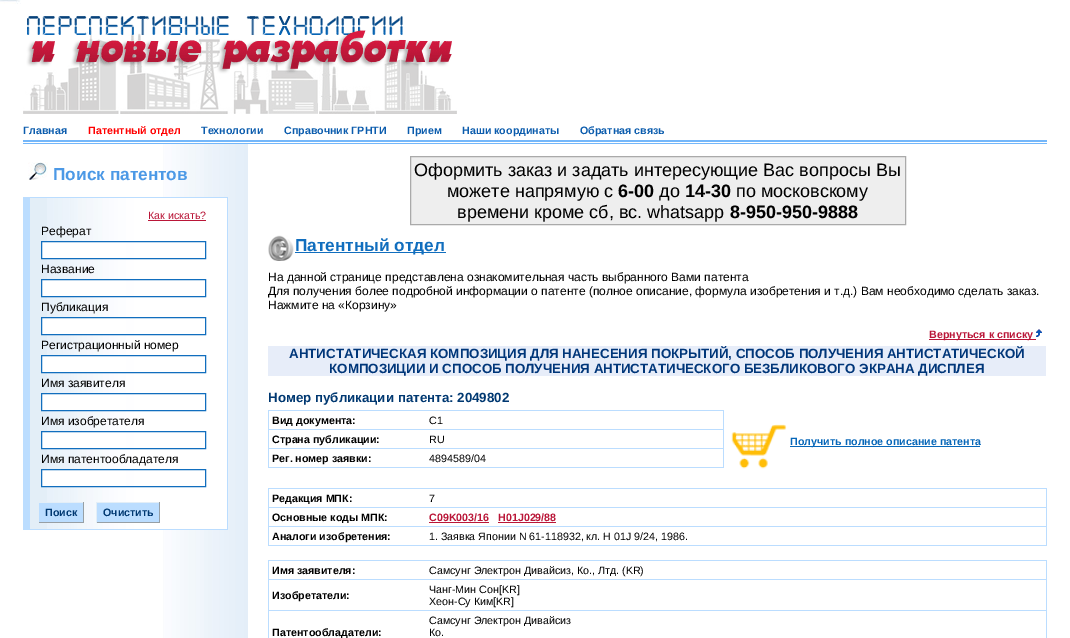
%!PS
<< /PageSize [1070 638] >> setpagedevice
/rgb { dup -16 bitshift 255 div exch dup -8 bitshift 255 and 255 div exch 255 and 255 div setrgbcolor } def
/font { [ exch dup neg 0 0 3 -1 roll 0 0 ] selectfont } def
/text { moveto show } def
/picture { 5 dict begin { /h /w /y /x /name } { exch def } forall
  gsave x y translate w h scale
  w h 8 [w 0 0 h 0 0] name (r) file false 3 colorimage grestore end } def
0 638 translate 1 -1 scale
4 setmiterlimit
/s1 { /LiberationSans-Bold 10.7 font 16#0B5CAD rgb } def
/s2 { /LiberationSans-Bold 10.7 font 16#FF0000 rgb } def
/s3 { /LiberationSans-Bold 17.25 font 16#4C99E6 rgb } def
/s4 { /LiberationSans-Regular 10.7 font 16#BA1638 rgb } def
/s5 { /LiberationSans-Regular 12 font 16#000000 rgb } def
/s6 { /LiberationSans-Bold 10.7 font 16#003871 rgb } def
/s7 { /LiberationSans-Regular 18 font 16#000000 rgb } def
/s8 { /LiberationSans-Bold 18 font 16#000000 rgb } def
/s9 { /LiberationSans-Bold 17.25 font 16#116EBE rgb } def
/s10 { /LiberationSans-Bold 10.7 font 16#BA1638 rgb } def
/s11 { /LiberationSans-Bold 13.33 font 16#003679 rgb } def
/s12 { /LiberationSans-Bold 13.33 font 16#003871 rgb } def
/s13 { /LiberationSans-Bold 10.7 font 16#000000 rgb } def
/s14 { /LiberationSans-Regular 10.7 font 16#000000 rgb } def
/s15 { /LiberationSans-Bold 10.7 font 16#0767B9 rgb } def
16#FFFFFF rgb
0 0 1070 638 rectfill
(pic1.raw) 0 0 21 4 picture
(pic2.raw) 23 16 434 98 picture
(pic3.raw) 23 140 1024 4 picture
s1
(Главная) 23 134 text
s2
(Патентный отдел) 88 134 text
s1
(Технологии) 201 134 text
(Справочник ГРНТИ) 284 134 text
(Прием) 407 134 text
(Наши координаты) 462 134 text
(Обратная связь) 580 134 text
(pic4.raw) 163 144 85 494 picture
(pic5.raw) 28 162 20 18 picture
s3
(Поиск патентов) 53 180 text
16#BBDDFF rgb
23 197 205 333 rectfill
16#E3EEF7 rgb
30 198 17 331 rectfill
(pic6.raw) 47 198 180 331 picture
s4
(Как искать?) 148 219 text
148 220 58 1 rectfill
s5
(Реферат) 41 235 text
16#FFFFFF rgb
42 242 84 16 rectfill
16#116EBE rgb
41.5 241.5 164 17 rectstroke
s5
(Название) 41 273 text
16#FFFFFF rgb
42 280 84 16 rectfill
16#116EBE rgb
41.5 279.5 164 17 rectstroke
s5
(Публикация) 41 311 text
16#FFFFFF rgb
42 318 84 16 rectfill
16#116EBE rgb
41.5 317.5 164 17 rectstroke
s5
(Регистрационный номер) 41 349 text
16#FFFFFF rgb
42 356 84 16 rectfill
16#116EBE rgb
41.5 355.5 164 17 rectstroke
s5
(Имя заявителя) 41 387 text
16#FFFFFF rgb
42 394 84 16 rectfill
16#116EBE rgb
41.5 393.5 164 17 rectstroke
s5
(Имя изобретателя) 41 425 text
16#FFFFFF rgb
42 432 84 16 rectfill
16#116EBE rgb
41.5 431.5 164 17 rectstroke
s5
(Имя патентообладателя) 41 463 text
16#FFFFFF rgb
42 470 84 16 rectfill
16#116EBE rgb
41.5 469.5 164 17 rectstroke
16#BBDDFF rgb
39 503 44 19 rectfill
16#E3EEF7 rgb
47 502 37 1 rectfill
16#979FA5 rgb
83 502 1 21 rectfill
38 522 46 1 rectfill
16#E3EEF7 rgb
38 522 1 1 rectfill
s6
(Поиск) 45 516 text
16#BBDDFF rgb
97 503 62 19 rectfill
16#E3EEF7 rgb
96 502 64 1 rectfill
16#979FA5 rgb
159 502 1 21 rectfill
96 522 64 1 rectfill
16#E3EEF7 rgb
96 502 1 21 rectfill
s6
(Очистить) 103 516 text
16#EEEEEE rgb
410.5 156.5 moveto 905.5 156.5 lineto 905.5 224.5 lineto 410.5 224.5 lineto closepath gsave fill grestore
16#AAAAAA rgb
stroke
s7
(Оформить заказ и задать интересующие Вас вопросы Вы) 414 176 text
(можете напрямую c) 447 197 text
s8
(6-00) 618 197 text
s7
(до) 659 197 text
s8
(14-30) 685 197 text
s7
(по московскому) 736 197 text
(времени кроме сб, вс. whatsapp) 457 218 text
s8
(8-950-950-9888) 730 218 text
(pic7.raw) 268 235 26 26 picture
16#116EBE rgb
295 252 151 1 rectfill
s9
(Патентный отдел) 295 251 text
s5
(На данной странице представлена ознакомительная часть выбранного Вами патента) 268 281 text
(Для получения более подробной информации о патенте \(полное описание, формула изобретения и т.д.\) Вам необходимо сделать заказ.) 268 295 text
(Нажмите на «Корзину») 268 309 text
16#BA1638 rgb
929 339 104 1 rectfill
s10
(Вернуться к списку) 929 338 text
1033 339 3 1 rectfill
(pic8.raw) 1036 329 6 8 picture
16#E7EDF9 rgb
268 346 778 30 rectfill
s11
(АНТИСТАТИЧЕСКАЯ КОМПОЗИЦИЯ ДЛЯ НАНЕСЕНИЯ ПОКРЫТИЙ, СПОСОБ ПОЛУЧЕНИЯ АНТИСТАТИЧЕСКОЙ) 289 358 text
(КОМПОЗИЦИИ И СПОСОБ ПОЛУЧЕНИЯ АНТИСТАТИЧЕСКОГО БЕЗБЛИКОВОГО ЭКРАНА ДИСПЛЕЯ) 329 373 text
s12
(Номер публикации патента: 2049802) 268 402 text
16#BBDDFF rgb
268 410 456 58 rectfill
16#FFFFFF rgb
269 411 454 18 rectfill
s13
(Вид документа:) 272 424 text
s14
(C1) 429 424 text
16#FFFFFF rgb
269 430 454 18 rectfill
s13
(Страна публикации:) 272 443 text
s14
(RU) 429 443 text
16#FFFFFF rgb
269 449 454 18 rectfill
s13
(Рег. номер заявки:) 272 462 text
s14
(4894589/04) 429 462 text
(pic9.raw) 731 424 56 45 picture
16#0767B9 rgb
790 446 190 1 rectfill
s15
(Получить полное описание патента) 790 445 text
16#BBDDFF rgb
268 488 779 58 rectfill
16#FFFFFF rgb
269 489 777 18 rectfill
s13
(Редакция МПК:) 272 502 text
s14
(7) 429 502 text
16#FFFFFF rgb
269 508 777 18 rectfill
s13
(Основные коды МПК:) 272 521 text
s10
(C09K003/16) 429 521 text
429 522 60 1 rectfill
(H01J029/88) 498 521 text
498 522 58 1 rectfill
16#FFFFFF rgb
269 527 777 18 rectfill
s13
(Аналоги изобретения:) 272 540 text
s14
(1. Заявка Японии N 61-118932, кл. H 01J 9/24, 1986.) 429 540 text
16#BBDDFF rgb
268 560 779 78 rectfill
16#FFFFFF rgb
269 561 777 18 rectfill
s13
(Имя заявителя:) 272 574 text
s14
(Самсунг Электрон Дивайсиз, Ко., Лтд. \(KR\)) 429 574 text
16#FFFFFF rgb
269 580 777 30 rectfill
s13
(Изобретатели:) 272 599 text
s14
(Чанг-Мин Сон[KR]) 429 593 text
(Хеон-Су Ким[KR]) 429 605 text
16#FFFFFF rgb
269 611 777 27 rectfill
s13
(Патентообладатели:) 272 636 text
s14
(Самсунг Электрон Дивайсиз) 429 624 text
(Ко.) 429 636 text
showpage
